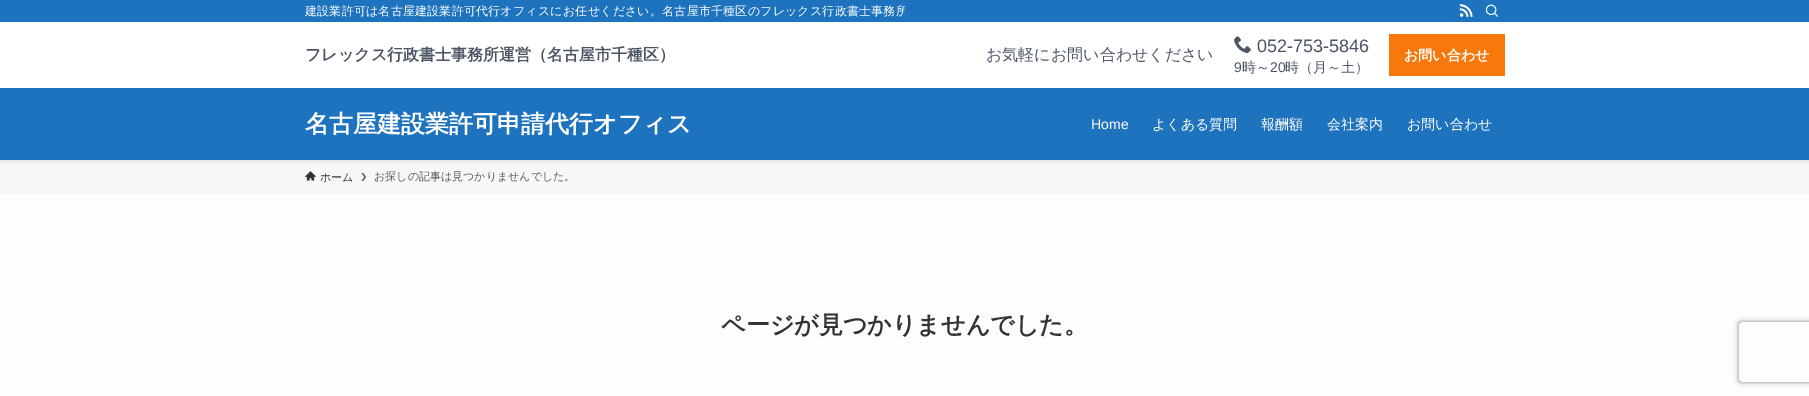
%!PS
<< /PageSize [1809 396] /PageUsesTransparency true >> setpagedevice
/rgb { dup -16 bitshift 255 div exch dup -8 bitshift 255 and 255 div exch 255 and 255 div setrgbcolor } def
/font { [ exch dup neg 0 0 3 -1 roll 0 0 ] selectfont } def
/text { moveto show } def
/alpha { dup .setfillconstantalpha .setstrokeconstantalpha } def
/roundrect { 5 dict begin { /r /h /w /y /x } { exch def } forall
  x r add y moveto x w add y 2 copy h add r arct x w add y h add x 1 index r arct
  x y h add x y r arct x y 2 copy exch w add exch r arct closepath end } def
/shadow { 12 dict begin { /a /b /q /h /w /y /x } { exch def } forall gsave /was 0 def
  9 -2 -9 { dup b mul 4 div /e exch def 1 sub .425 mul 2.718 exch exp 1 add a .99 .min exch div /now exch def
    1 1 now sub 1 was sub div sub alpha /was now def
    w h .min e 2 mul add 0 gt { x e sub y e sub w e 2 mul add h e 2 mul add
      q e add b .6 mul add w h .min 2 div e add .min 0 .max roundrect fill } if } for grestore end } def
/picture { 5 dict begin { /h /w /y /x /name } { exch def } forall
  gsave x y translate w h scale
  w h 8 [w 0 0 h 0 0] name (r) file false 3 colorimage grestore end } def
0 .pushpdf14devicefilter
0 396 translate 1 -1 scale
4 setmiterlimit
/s1 { /WenQuanYiZenHei-Bold 16 font 16#4B5563 rgb } def
/s2 { /WenQuanYiZenHei-Medium 16 font 16#4B5563 rgb } def
/s3 { /LiberationSans-Regular 18 font 16#4B5563 rgb } def
/s4 { /LiberationSans-Regular 14 font 16#4B5563 rgb } def
/s5 { /WenQuanYiZenHei-Medium 14 font 16#4B5563 rgb } def
/s6 { /WenQuanYiZenHei-Bold 14 font 16#FFFFFF rgb } def
/s7 { /WenQuanYiZenHei-Bold 24 font 16#FFFFFF rgb } def
/s8 { /LiberationSans-Regular 14 font 16#FFFFFF rgb } def
/s9 { /WenQuanYiZenHei-Medium 14 font 16#FFFFFF rgb } def
/s10 { /WenQuanYiZenHei-Medium 11 font 16#333333 rgb } def
/s11 { /WenQuanYiZenHei-Medium 11 font 16#5A5A5A rgb } def
/s12 { /WenQuanYiZenHei-Bold 24 font 16#333333 rgb } def
16#FDFDFD rgb
0 0 1809 396 rectfill
16#F7F7F7 rgb
0 160 1809 34 rectfill
16#000000 rgb
0 1 1809 160 0 2 0.12 shadow
16#1E73BE rgb
0 0 1809 160 rectfill
gsave
305 0 600 22 rectclip
/WenQuanYiZenHei-Medium 12 font
16#FFFFFF rgb
305 15 moveto 0.2 0 (建設業許可は名古屋建設業許可代行オフィスにお任せください。名古屋市千種区のフレックス行政書士事務所) ashow
grestore
(pic1.raw) 1459 4 14 13 picture
(pic2.raw) 1485 4 14 13 picture
16#FFFFFF rgb
0 22 1809 66 rectfill
s1
(フレックス行政書士事務所運営（名古屋市千種区）) 305 60 text
s2
(お気軽にお問い合わせください) 986 60 text
(pic3.raw) 1234 36 17 18 picture
s3
(052-753-5846) 1257 52 text
s4
(9) 1234 72 text
s5
(時～) 1242 72 text
s4
(20) 1270 72 text
s5
(時（月～土）) 1285 72 text
16#F7790B rgb
1389 34 116 42 rectfill
s6
(お問い合わせ) 1404 60 text
s7
(名古屋建設業許可申請代行オフィス) 305 132 text
s8
(Home) 1091 129 text
s9
(よくある質問) 1152 129 text
(報酬額) 1261 129 text
(会社案内) 1327 129 text
(お問い合わせ) 1407 129 text
(pic4.raw) 305 171 11 10 picture
s10
(ホーム) 320 181 text
16#5A5A5A rgb
363 173 moveto 361.5 173 lineto 364.5 177 lineto 361.5 181 lineto 363 181 lineto 366 177 lineto closepath fill
(お探しの記事は見つかりませんでした。) 374 180 text
s12
(ページが見つかりませんでした。) 721 333 text
gsave
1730 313 moveto 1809 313 lineto 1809 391 lineto 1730 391 lineto closepath 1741 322 moveto 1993 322 lineto 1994 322 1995 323 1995 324 curveto 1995 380 lineto 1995 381 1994 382 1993 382 curveto 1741 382 lineto 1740 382 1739 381 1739 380 curveto 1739 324 lineto 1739 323 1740 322 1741 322 curveto closepath eoclip newpath
16#808080 rgb
1739 322 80 60 2 2.5 1 shadow
grestore
.poppdf14devicefilter showpage
